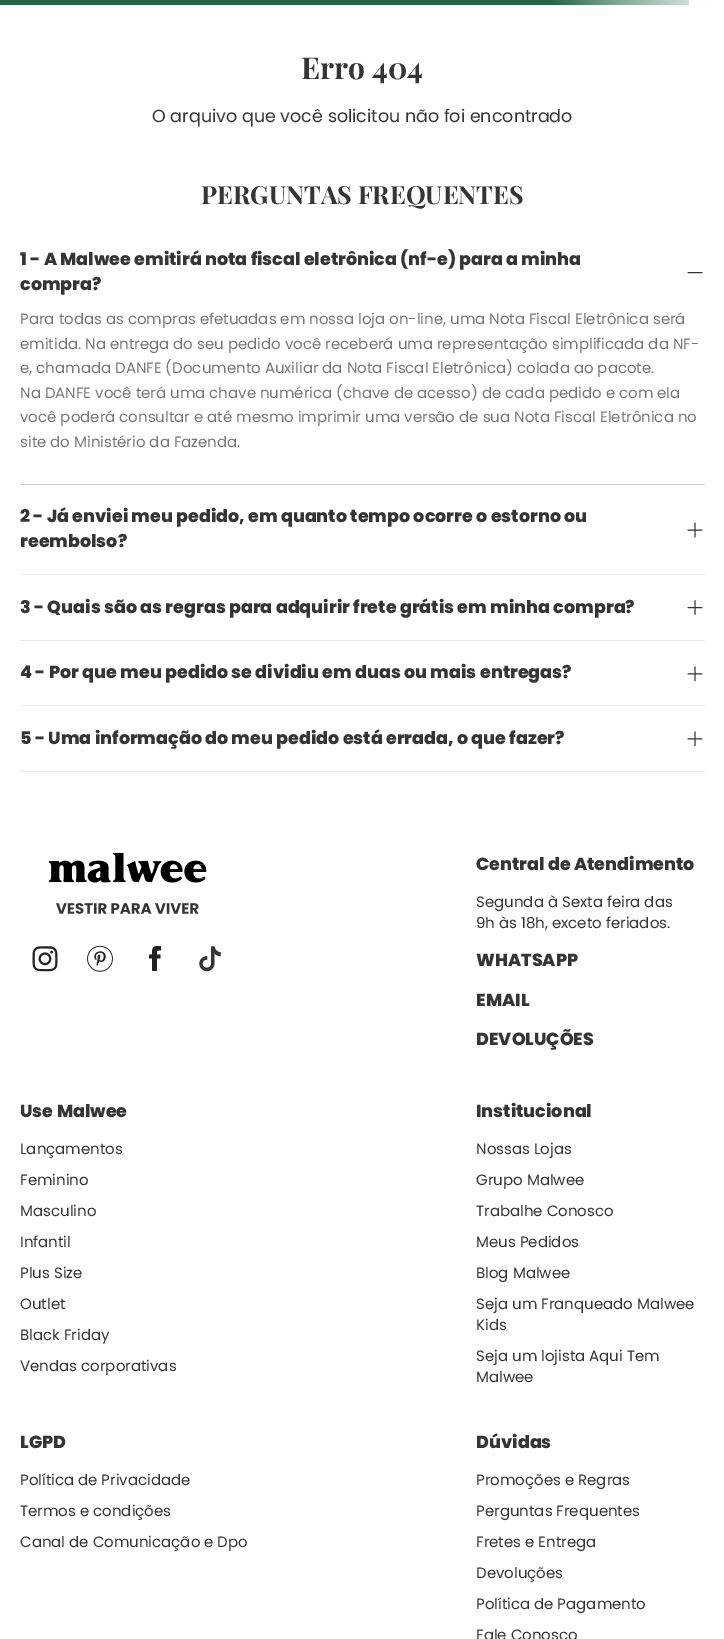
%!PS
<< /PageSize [724 1639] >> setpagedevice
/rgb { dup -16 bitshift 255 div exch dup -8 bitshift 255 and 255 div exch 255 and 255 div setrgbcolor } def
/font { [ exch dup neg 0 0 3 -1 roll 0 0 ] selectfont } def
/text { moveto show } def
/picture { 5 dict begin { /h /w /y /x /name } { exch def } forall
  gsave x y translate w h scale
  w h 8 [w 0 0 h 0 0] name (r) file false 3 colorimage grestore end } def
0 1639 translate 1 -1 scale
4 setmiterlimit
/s1 { /PlayfairDisplay-Bold 30 font 16#353535 rgb } def
/s2 { /Poppins-Regular 17.5 font 16#353535 rgb } def
/s3 { /PlayfairDisplay-Bold 25 font 16#353535 rgb } def
/s4 { /Poppins-ExtraBold 17.5 font 16#353535 rgb } def
/s5 { /Poppins-Regular 15 font 16#777777 rgb } def
/s6 { /Poppins-Regular 15 font 16#353535 rgb } def
16#FFFFFF rgb
0 0 724 1639 rectfill
gsave 0 0 moveto 689 0 lineto 689 5 lineto 0 5 lineto closepath clip newpath
<< /ShadingType 2 /ColorSpace /DeviceRGB /Coords [0 2.5 689 2.5] /Extend [true true] /Function << /FunctionType 3 /Domain [0 1] /Functions [<< /FunctionType 2 /Domain [0 1] /C0 [0.137 0.396 0.271] /C1 [0.137 0.396 0.271] /N 1 >> << /FunctionType 2 /Domain [0 1] /C0 [0.137 0.396 0.271] /C1 [0.522 0.667 0.596] /N 1 >> << /FunctionType 2 /Domain [0 1] /C0 [0.522 0.667 0.596] /C1 [0.808 0.867 0.839] /N 1 >>] /Bounds [0.8 0.9] /Encode [0 1 0 1 0 1] >> >> shfill grestore
s1
(Erro 404) 301 79 text
s2
(O arquivo que você solicitou não foi encontrado) 152 122 text
s3
(PERGUNTAS FREQUENTES) 201 204 text
s4
(1 - A Malwee emitirá nota fiscal eletrônica \(nf-e\) para a minha) 20 265 text
(compra?) 20 290 text
(pic1.raw) 687 272 16 2 picture
16#CCCCCC rgb
20 484 685 1 rectfill
s5
(Para todas as compras efetuadas em nossa loja on-line, uma Nota Fiscal Eletrônica será) 20 324 text
(emitida. Na entrega do seu pedido você receberá uma representação simplificada da NF-) 20 349 text
(e, chamada DANFE \(Documento Auxiliar da Nota Fiscal Eletrônica\) colada ao pacote.) 20 373 text
(Na DANFE você terá uma chave numérica \(chave de acesso\) de cada pedido e com ela) 20 398 text
(você poderá consultar e até mesmo imprimir uma versão de sua Nota Fiscal Eletrônica no) 20 422 text
(site do Ministério da Fazenda.) 20 447 text
16#EBEBEB rgb
20 574 685 1 rectfill
s4
(2 - Já enviei meu pedido, em quanto tempo ocorre o estorno ou) 20 522 text
(reembolso?) 20 547 text
(pic2.raw) 687 522 16 16 picture
16#EBEBEB rgb
20 640 685 1 rectfill
s4
(3 - Quais são as regras para adquirir frete grátis em minha compra?) 20 613 text
(pic3.raw) 687 600 16 15 picture
16#EBEBEB rgb
20 705 685 1 rectfill
s4
(4 - Por que meu pedido se dividiu em duas ou mais entregas?) 20 678 text
(pic4.raw) 687 666 16 16 picture
16#EBEBEB rgb
20 771 685 1 rectfill
s4
(5 - Uma informação do meu pedido está errada, o que fazer?) 20 744 text
(pic4.raw) 687 731 16 16 picture
(pic5.raw) 48 853 159 61 picture
(pic6.raw) 32 946 26 26 picture
(pic7.raw) 87 945 26 27 picture
16#222221 rgb
152 971 moveto 157 971 lineto 157 958.5 lineto 160.5 958.5 lineto 160.5 954.5 lineto 157 954.5 lineto 157 950 156.5 950.5 161 950.5 curveto 161 946 lineto 153 946 152 946.5 152 954.5 curveto 149 954.5 lineto 149 958.5 lineto 152 958.5 lineto closepath fill
(pic8.raw) 199 946 22 26 picture
s4
(Central de Atendimento) 476 870 text
s6
(Segunda à Sexta feira das) 476 907 text
(9h às 18h, exceto feriados.) 476 928 text
s4
(WHATSAPP) 476 966 text
(EMAIL) 476 1006 text
(DEVOLUÇÕES) 476 1045 text
(Use Malwee) 20 1117 text
s6
(Lançamentos) 20 1154 text
(Feminino) 20 1185 text
(Masculino) 20 1216 text
(Infantil) 20 1247 text
(Plus Size) 20 1278 text
(Outlet) 20 1309 text
(Black Friday) 20 1340 text
(Vendas corporativas) 20 1371 text
s4
(Institucional) 476 1117 text
s6
(Nossas Lojas) 476 1154 text
(Grupo Malwee) 476 1185 text
(Trabalhe Conosco) 476 1216 text
(Meus Pedidos) 476 1247 text
(Blog Malwee) 476 1278 text
(Seja um Franqueado Malwee) 476 1309 text
(Kids) 476 1330 text
(Seja um lojista Aqui Tem) 476 1361 text
(Malwee) 476 1382 text
s4
(LGPD) 20 1448 text
s6
(Política de Privacidade) 20 1485 text
(Termos e condições) 20 1516 text
(Canal de Comunicação e Dpo) 20 1547 text
s4
(Dúvidas) 476 1448 text
s6
(Promoções e Regras) 476 1485 text
(Perguntas Frequentes) 476 1516 text
(Fretes e Entrega) 476 1547 text
(Devoluções) 476 1578 text
(Política de Pagamento) 476 1609 text
(Fale Conosco) 476 1640 text
showpage
